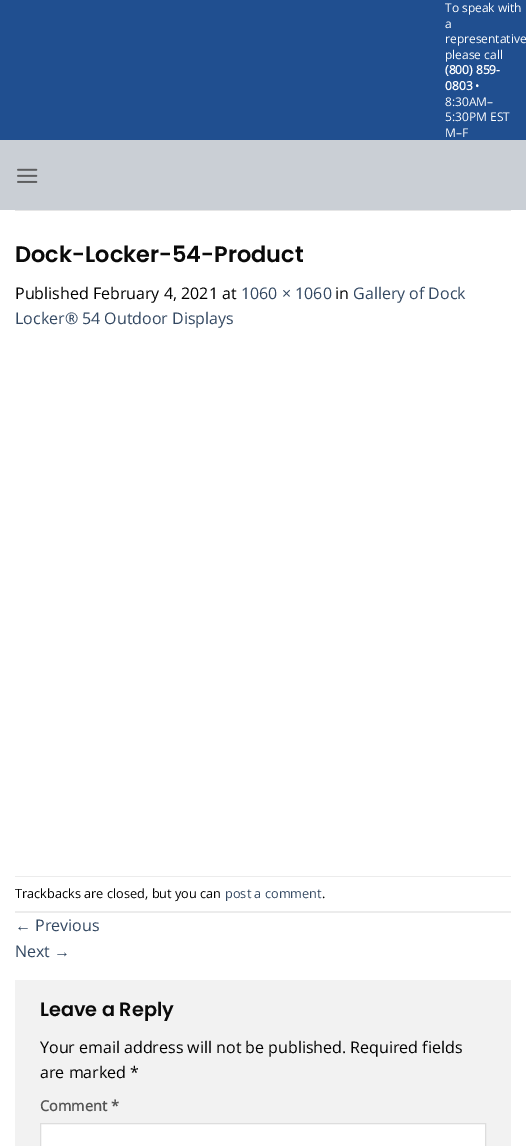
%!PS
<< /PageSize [526 1146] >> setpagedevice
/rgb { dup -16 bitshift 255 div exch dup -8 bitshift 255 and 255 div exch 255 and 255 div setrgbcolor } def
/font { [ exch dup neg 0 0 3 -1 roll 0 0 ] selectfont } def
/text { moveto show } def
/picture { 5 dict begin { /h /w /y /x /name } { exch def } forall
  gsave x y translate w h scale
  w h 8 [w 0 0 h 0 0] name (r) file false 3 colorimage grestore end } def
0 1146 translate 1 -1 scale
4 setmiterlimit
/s1 { /OpenSans-Regular 12 font 16#FFFFFF rgb } def
/s2 { /OpenSans-Bold 12 font 16#FFFFFF rgb } def
/s3 { /Poppins-SemiBold 22.4 font 16#0A0A0A rgb } def
/s4 { /OpenSans-Regular 16 font 16#000000 rgb } def
/s5 { /OpenSans-Regular 16 font 16#334862 rgb } def
/s6 { /OpenSans-Regular 12.75 font 16#000000 rgb } def
/s7 { /OpenSans-Regular 12.75 font 16#334862 rgb } def
/s8 { /LiberationSans-Regular 16 font 16#334862 rgb } def
/s9 { /Poppins-SemiBold 19.25 font 16#0A0A0A rgb } def
/s10 { /OpenSans-Bold 14.5 font 16#555555 rgb } def
16#CACFD5 rgb
0 0 526 1146 rectfill
16#204F90 rgb
0 0 526 140 rectfill
s1
(To speak with) 445 12 text
(a) 445 28 text
(representative) 445 43 text
(please call) 445 59 text
s2
(\(800\) 859-) 445 74 text
(0803) 445 90 text
s1
(•) 475 90 text
(8:30AM–) 445 106 text
(5:30PM EST) 445 121 text
(M–F) 445 137 text
(pic1.raw) 17 168 21 15 picture
0 210 526 936 rectfill
16#E6E6E6 rgb
15 210 496 1 rectfill
s3
(Dock-Locker-54-Product) 15 262 text
s4
(Published February 4, 2021 at) 15 299 text
s5
(1060 × 1060) 241 299 text
s4
(in) 335 299 text
s5
(Gallery of Dock) 353 299 text
(Locker® 54 Outdoor Displays) 15 324 text
16#ECECEC rgb
15 876 496 1 rectfill
15 911 496 2 rectfill
s6
(Trackbacks are closed, but you can) 15 898 text
s7
(post a comment) 225 898 text
s6
(.) 322 898 text
s8
(←) 15 931 text
s5
(Previous) 35 931 text
(Next) 15 957 text
s8
(→) 54 957 text
16#F2F2F2 rgb
15 980 496 166 rectfill
s9
(Leave a Reply) 40 1016 text
s4
(Your email address will not be published. Required fields) 40 1053 text
(are marked *) 40 1078 text
s10
(Comment *) 40 1111 text
16#FFFFFF rgb
40.5 1123.5 moveto 485.5 1123.5 lineto 485.5 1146.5 lineto 40.5 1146.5 lineto closepath gsave fill grestore
16#DDDDDD rgb
stroke
showpage
